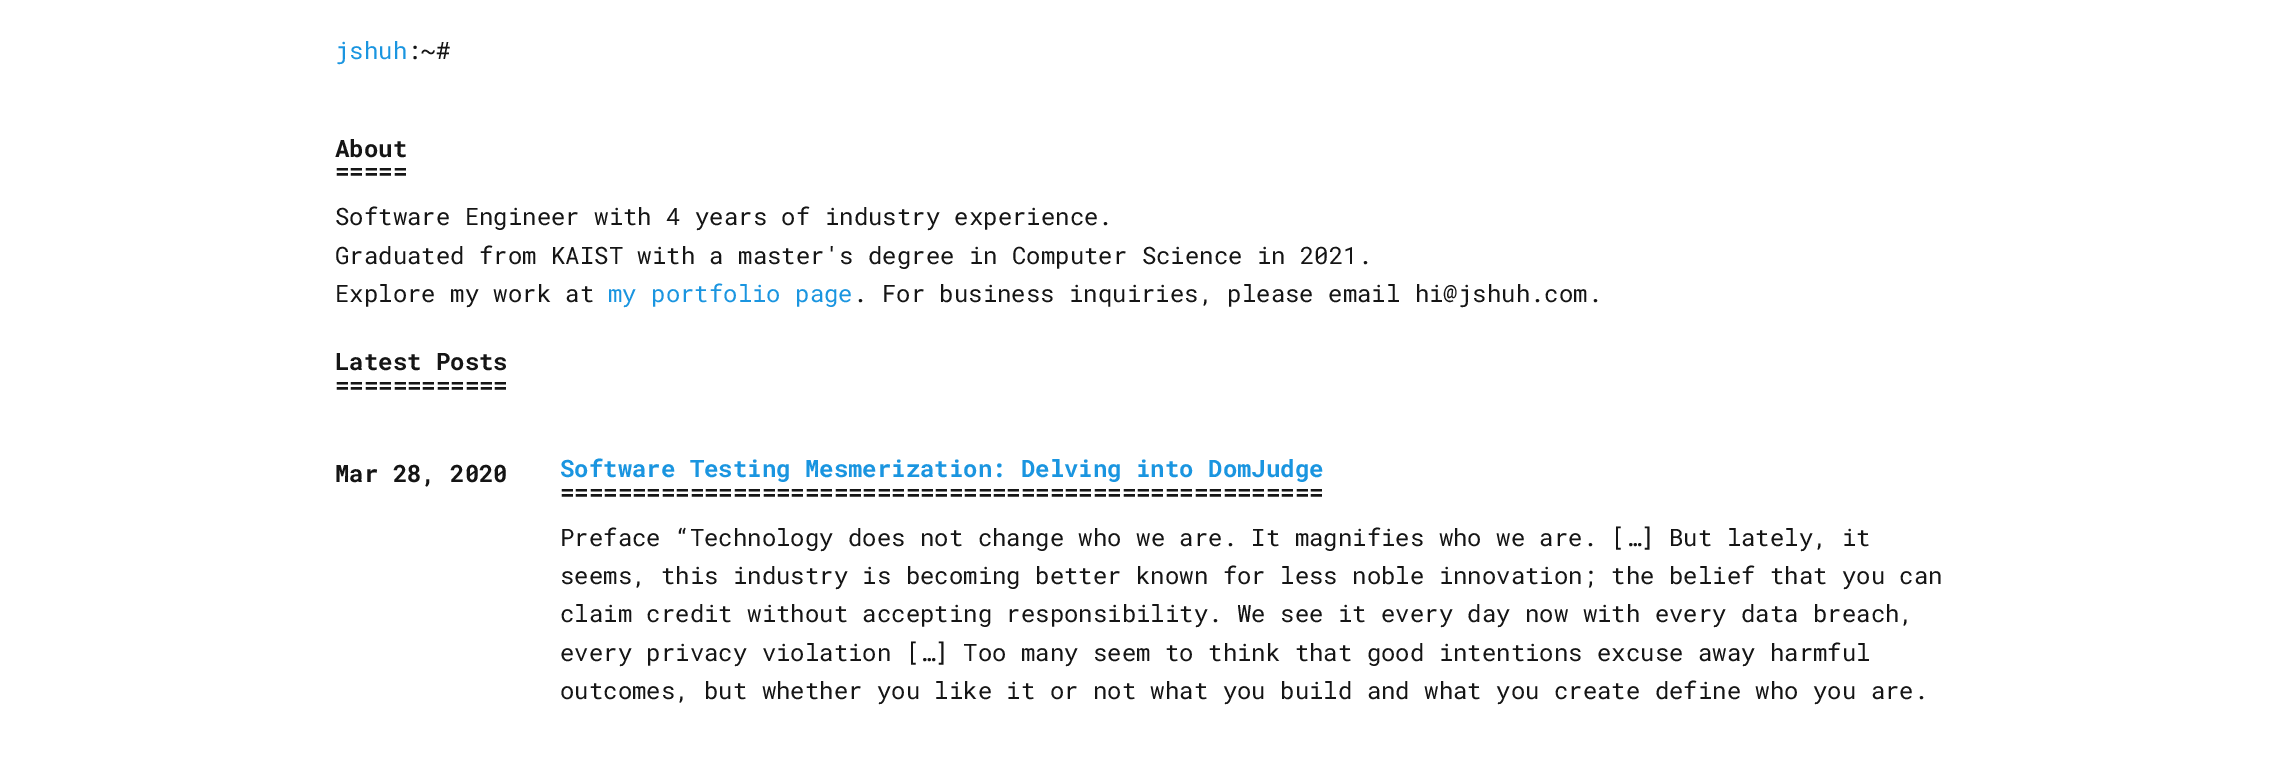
%!PS
<< /PageSize [2288 757] >> setpagedevice
/rgb { dup -16 bitshift 255 div exch dup -8 bitshift 255 and 255 div exch 255 and 255 div setrgbcolor } def
/font { [ exch dup neg 0 0 3 -1 roll 0 0 ] selectfont } def
/text { moveto show } def
0 757 translate 1 -1 scale
4 setmiterlimit
/s1 { /RobotoMono-Regular 24 font 16#1A95E0 rgb } def
/s2 { /RobotoMono-Regular 24 font 16#151515 rgb } def
/s3 { /RobotoMono-Bold 24 font 16#151515 rgb } def
/s4 { /RobotoMono-Bold 24 font 16#1A95E0 rgb } def
16#FFFFFF rgb
0 0 2288 757 rectfill
s1
(jshuh) 335 59 text
s2
(:~#) 407 59 text
s3
(About) 335 157 text
(=====) 335 179 text
s2
(Software Engineer with 4 years of industry experience.) 335 225 text
(Graduated from KAIST with a master's degree in Computer Science in 2021.) 335 264 text
(Explore my work at) 335 302 text
s1
(my portfolio page) 608 302 text
s2
(. For business inquiries, please email hi@jshuh.com.) 853 302 text
s3
(Latest Posts) 335 370 text
(============) 335 393 text
(Mar 28, 2020) 335 482 text
s4
(Software Testing Mesmerization: Delving into DomJudge) 560 477 text
s3
(=====================================================) 560 500 text
s2
(Preface “Technology does not change who we are. It magnifies who we are. […] But lately, it) 560 546 text
(seems, this industry is becoming better known for less noble innovation; the belief that you can) 560 584 text
(claim credit without accepting responsibility. We see it every day now with every data breach,) 560 622 text
(every privacy violation […] Too many seem to think that good intentions excuse away harmful) 560 661 text
(outcomes, but whether you like it or not what you build and what you create define who you are.) 560 699 text
showpage
